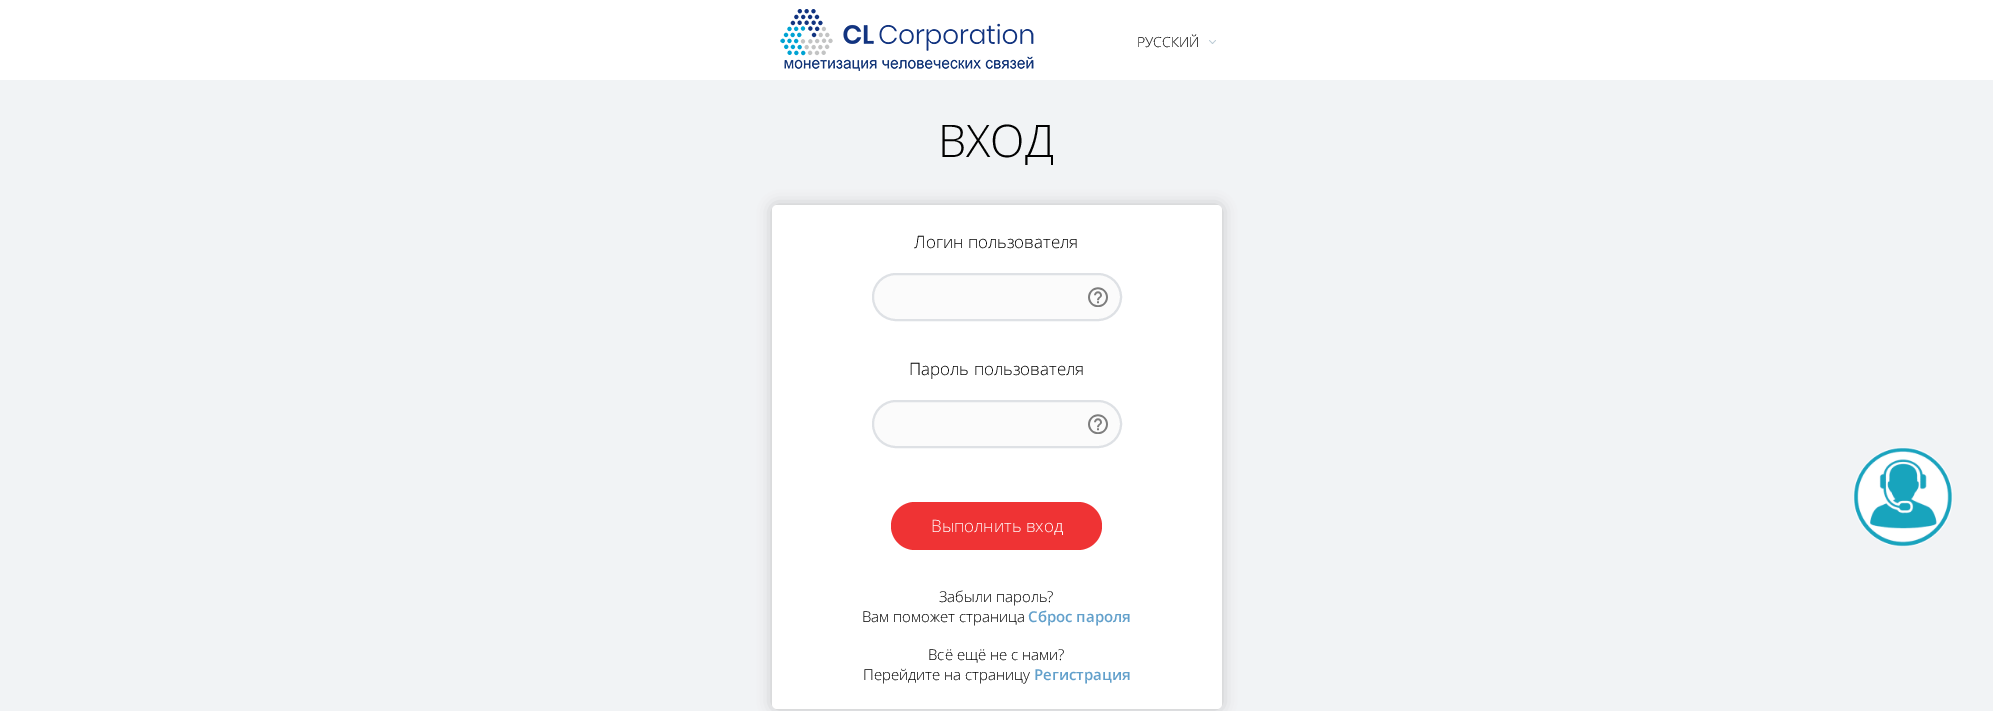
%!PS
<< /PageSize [1993 711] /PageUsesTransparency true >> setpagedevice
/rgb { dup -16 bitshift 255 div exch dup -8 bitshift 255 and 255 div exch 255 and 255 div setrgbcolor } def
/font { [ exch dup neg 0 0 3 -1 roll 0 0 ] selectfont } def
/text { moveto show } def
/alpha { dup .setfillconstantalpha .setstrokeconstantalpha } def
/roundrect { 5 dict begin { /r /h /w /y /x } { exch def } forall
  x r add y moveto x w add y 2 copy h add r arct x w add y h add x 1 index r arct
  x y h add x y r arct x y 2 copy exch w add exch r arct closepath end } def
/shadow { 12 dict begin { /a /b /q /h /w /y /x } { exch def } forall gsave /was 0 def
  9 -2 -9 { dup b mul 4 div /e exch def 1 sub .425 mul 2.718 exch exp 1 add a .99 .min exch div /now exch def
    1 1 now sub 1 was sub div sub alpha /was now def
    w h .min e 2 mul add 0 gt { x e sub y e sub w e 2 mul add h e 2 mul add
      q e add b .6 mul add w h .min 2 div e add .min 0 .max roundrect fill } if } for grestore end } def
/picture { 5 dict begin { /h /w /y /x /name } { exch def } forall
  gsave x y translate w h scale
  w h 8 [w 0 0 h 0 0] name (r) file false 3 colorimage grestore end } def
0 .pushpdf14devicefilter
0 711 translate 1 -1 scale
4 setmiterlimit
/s1 { /OpenSans-Light 14 font 16#000000 rgb } def
/s2 { /OpenSans-Light 45 font 16#000000 rgb } def
/s3 { /OpenSans-Light 17 font 16#000000 rgb } def
/s4 { /OpenSans-Light 17 font 16#FFFFFF rgb } def
/s5 { /OpenSans-Light 15 font 16#000000 rgb } def
/s6 { /OpenSans-SemiBold 15 font 16#62A0CB rgb } def
16#FFFFFF rgb
0 0 1993 711 rectfill
(pic1.raw) 780 9 254 62 picture
s1
(РУССКИЙ) 1137 47 text
(pic2.raw) 1209 40 7 4 picture
16#F1F3F5 rgb
0 80 1993 631 rectfill
s2
(ВХОД) 938 157 text
16#C3C3C3 rgb
772 205 450 504 5 7 1 shadow
16#FFFFFF rgb
772 205 450 504 5 roundrect fill
s3
(Логин пользователя) 914 248 text
16#FBFBFB rgb
873 274 248 46 23 roundrect gsave fill grestore
16#DEE1E5 rgb
2 setlinewidth
stroke
(pic3.raw) 1088 287 20 20 picture
s3
(Пароль пользователя) 909 375 text
16#FBFBFB rgb
873 401 248 46 23 roundrect gsave fill grestore
16#DEE1E5 rgb
stroke
(pic3.raw) 1088 414 20 20 picture
16#EF3334 rgb
891 502 211 48 24 roundrect fill
s4
(Выполнить вход) 931 532 text
s5
(Забыли пароль?) 939 602 text
(Вам поможет страница) 862 622 text
s6
(Сброс пароля) 1028 622 text
s5
(Всё ещё не с нами?) 928 660 text
(Перейдите на страницу) 863 680 text
s6
(Регистрация) 1034 680 text
(pic4.raw) 1853 447 100 100 picture
.poppdf14devicefilter showpage
